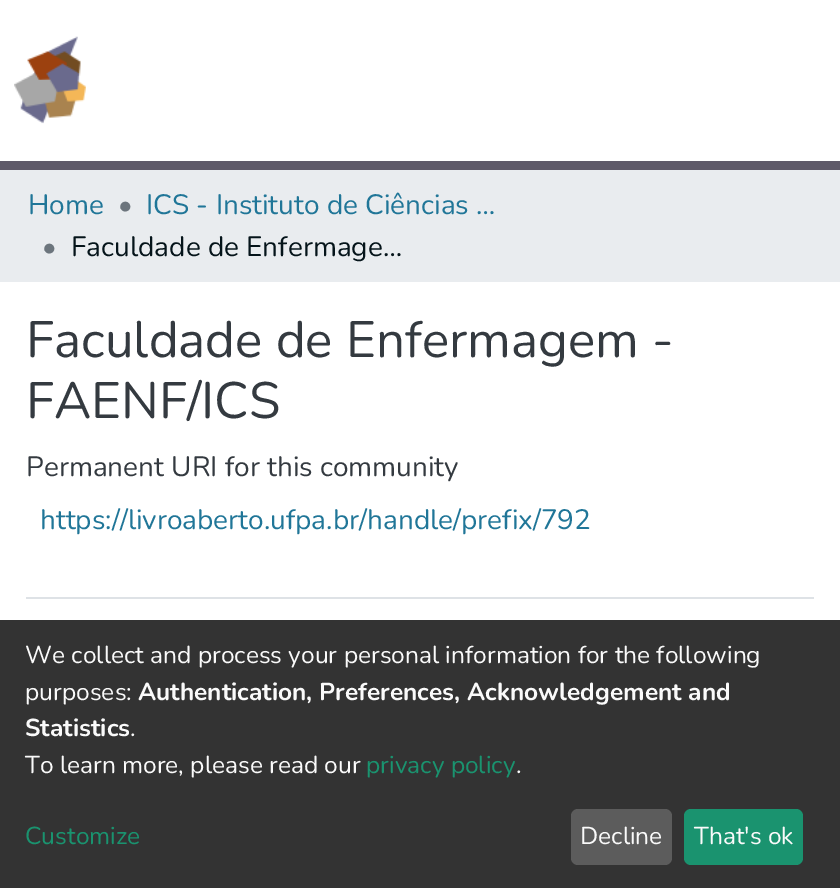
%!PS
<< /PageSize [840 888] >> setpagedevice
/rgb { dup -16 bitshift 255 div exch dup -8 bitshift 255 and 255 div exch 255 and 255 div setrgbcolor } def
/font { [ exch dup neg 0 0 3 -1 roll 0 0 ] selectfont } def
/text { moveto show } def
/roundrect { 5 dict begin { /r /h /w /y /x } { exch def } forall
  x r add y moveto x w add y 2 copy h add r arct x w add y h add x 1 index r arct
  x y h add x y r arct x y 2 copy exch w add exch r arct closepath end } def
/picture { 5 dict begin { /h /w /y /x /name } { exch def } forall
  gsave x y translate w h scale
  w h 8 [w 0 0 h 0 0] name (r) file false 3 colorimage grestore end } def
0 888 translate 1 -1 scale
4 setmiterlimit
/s1 { /Nunito-Regular 28 font 16#207698 rgb } def
/s2 { /Nunito-Regular 28 font 16#6C757D rgb } def
/s3 { /Nunito-Regular 28 font 16#05141A rgb } def
/s4 { /Nunito-Regular 51.1 font 16#343A40 rgb } def
/s5 { /Nunito-Regular 28 font 16#343A40 rgb } def
/s6 { /Nunito-Regular 24.5 font 16#FAFAFA rgb } def
/s7 { /Nunito-Bold 24.5 font 16#FAFAFA rgb } def
/s8 { /Nunito-Regular 24.5 font 16#1A936F rgb } def
16#FFFFFF rgb
0 0 840 888 rectfill
16#5E5A69 rgb
0 161 840 9 rectfill
(pic1.raw) 14 36 72 88 picture
16#E9ECEF rgb
0 170 840 112 rectfill
s1
(Home) 28 214 text
s2
(•) 118 214 text
s1
(ICS - Instituto de Ciências …) 146 214 text
s2
(•) 42 256 text
s3
(Faculdade de Enfermage…) 71 256 text
16#DEE2E6 rgb
26 597 788 2 rectfill
s4
(Faculdade de Enfermagem -) 26 357 text
(FAENF/ICS) 26 418 text
s5
(Permanent URI for this community) 26 476 text
s1
(https://livroaberto.ufpa.br/handle/prefix/792) 40 529 text
16#333333 rgb
0 620 840 268 rectfill
s6
(We collect and process your personal information for the following) 25 663 text
(purposes:) 25 700 text
s7
(Authentication, Preferences, Acknowledgement and) 138 700 text
(Statistics) 25 736 text
s6
(.) 130 736 text
(To learn more, please read our) 25 773 text
s8
(privacy policy) 366 773 text
s6
(.) 516 773 text
s8
(Customize) 25 844 text
16#5C5C5C rgb
571 809 101 56 7 roundrect fill
s6
(Decline) 580 844 text
16#1A936F rgb
684 809 119 56 7 roundrect fill
s6
(That's ok) 694 844 text
showpage
